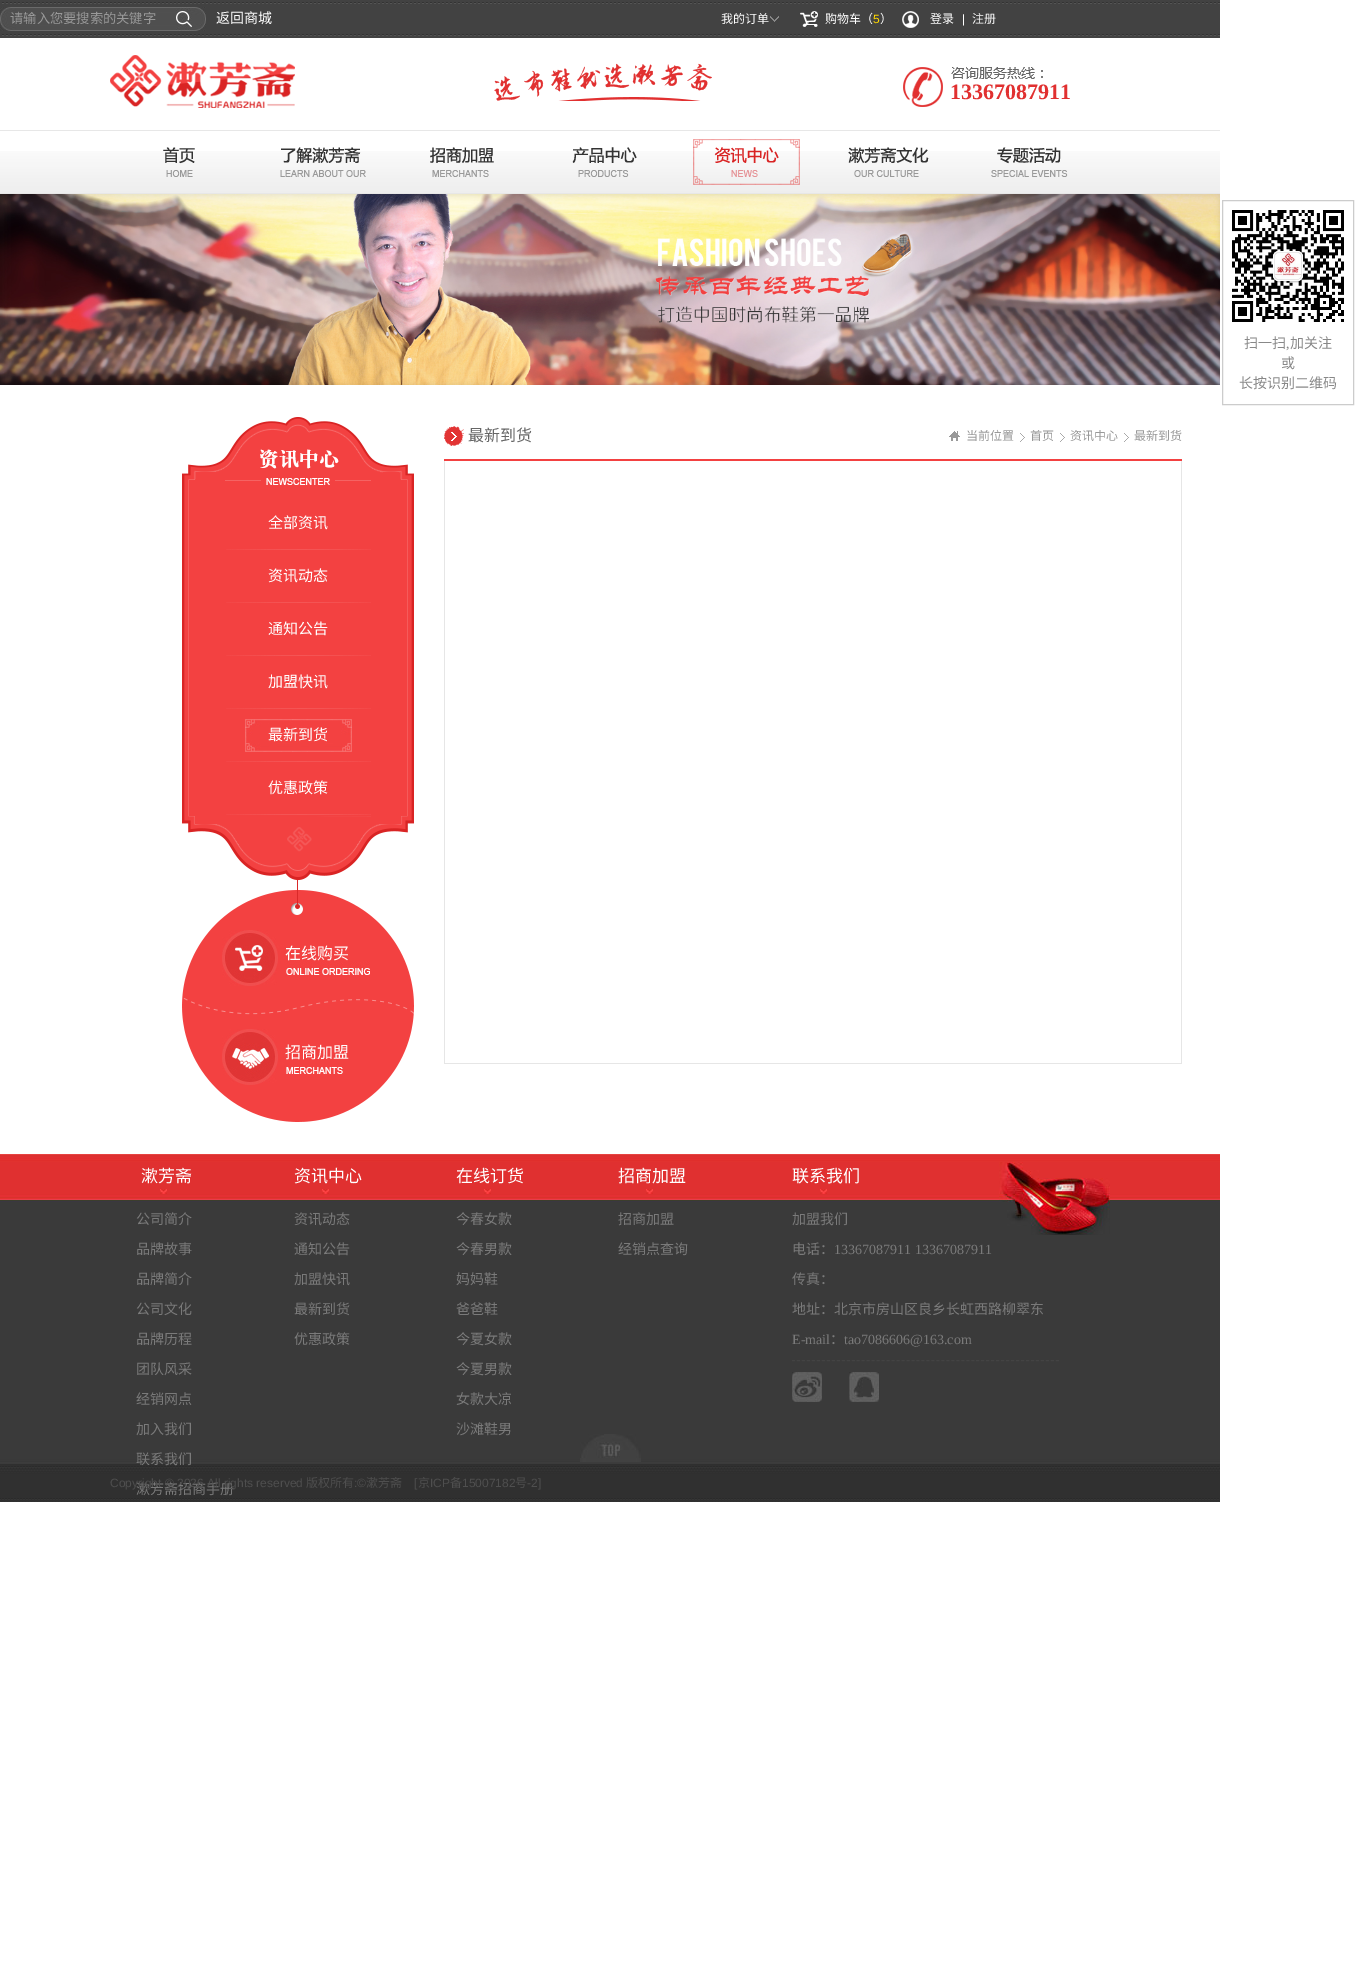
%!PS
<< /PageSize [1364 1975] >> setpagedevice
/rgb { dup -16 bitshift 255 div exch dup -8 bitshift 255 and 255 div exch 255 and 255 div setrgbcolor } def
/font { [ exch dup neg 0 0 3 -1 roll 0 0 ] selectfont } def
/text { moveto show } def
/picture { 5 dict begin { /h /w /y /x /name } { exch def } forall
  gsave x y translate w h scale
  w h 8 [w 0 0 h 0 0] name (r) file false 3 colorimage grestore end } def
0 1975 translate 1 -1 scale
4 setmiterlimit
/s1 { /NotoSansCJKSC-Regular 13.25 font 16#999999 rgb } def
/s2 { /NotoSansCJKSC-Regular 14 font 16#FFFFFF rgb } def
/s3 { /NotoSansCJKSC-Regular 12 font 16#FFFFFF rgb } def
/s4 { /LiberationSans-Regular 12 font 16#FFD800 rgb } def
/s5 { /LiberationSans-Regular 12 font 16#FFFFFF rgb } def
/s6 { /LiberationSerif-Bold 22 font 16#E13030 rgb } def
/s7 { /NotoSansCJKSC-Regular 14 font 16#888888 rgb } def
/s8 { /LiberationSerif-Regular 14 font 16#888888 rgb } def
/s9 { /NotoSansCJKSC-Regular 16 font 16#666666 rgb } def
/s10 { /NotoSansCJKSC-Regular 12 font 16#999999 rgb } def
/s11 { /NotoSansCJKSC-Regular 15 font 16#FFFFFF rgb } def
/s12 { /NotoSansCJKSC-Regular 16 font 16#FFFFFF rgb } def
/s13 { /NotoSansCJKSC-Regular 17 font 16#FFFFFF rgb } def
/s14 { /NotoSansCJKSC-Regular 14 font 16#7A7A7A rgb } def
/s15 { /LiberationSerif-Regular 14 font 16#7A7A7A rgb } def
/s16 { /LiberationSans-Regular 12 font 16#4F4F4F rgb } def
/s17 { /NotoSansCJKSC-Regular 12 font 16#4F4F4F rgb } def
16#FFFFFF rgb
0 0 1364 1975 rectfill
(pic1.raw) 0 0 1220 38 picture
(pic2.raw) 0 7 206 24 picture
s1
(请输入您要搜索的关键字) 10 23 text
s2
(返回商城) 216 23 text
(pic3.raw) 770 16 9 6 picture
s3
(我的订单) 721 23 text
(pic4.raw) 800 11 18 16 picture
(购物车（) 825 23 text
s4
(5) 873 23 text
s3
(）) 880 23 text
(pic5.raw) 902 11 17 17 picture
(登录) 930 23 text
s5
(|) 962 23 text
s3
(注册) 972 23 text
(pic6.raw) 110 55 185 53 picture
(pic7.raw) 494 63 218 38 picture
(pic8.raw) 903 67 140 40 picture
s6
(13367087911) 950 99 text
(pic9.raw) 0 151 1220 42 picture
16#E7E7E7 rgb
0 130 1220 1 rectfill
0 193 1220 1 rectfill
(pic10.raw) 163 147 32 30 picture
(pic11.raw) 280 147 86 30 picture
(pic12.raw) 430 147 64 30 picture
(pic13.raw) 572 147 65 30 picture
(pic14.raw) 693 139 107 46 picture
(pic15.raw) 848 147 81 30 picture
(pic16.raw) 991 147 77 30 picture
(pic17.raw) 0 194 1220 191 picture
16#CCCCCC rgb
1222.5 200.5 131 204 rectstroke
(pic18.raw) 1232 210 112 112 picture
s7
(扫一扫) 1244 348 text
s8
(,) 1286 348 text
s7
(加关注) 1290 348 text
(或) 1281 368 text
(长按识别二维码) 1239 388 text
16#F34141 rgb
444 459 738 2 rectfill
(pic19.raw) 444 426 20 20 picture
s9
(最新到货) 468 441 text
(pic20.raw) 949 431 11 10 picture
s10
(当前位置) 966 440 text
(pic21.raw) 1020 433 5 9 picture
(首页) 1030 440 text
(pic21.raw) 1060 433 5 9 picture
(资讯中心) 1070 440 text
(pic21.raw) 1124 433 5 9 picture
(最新到货) 1134 440 text
16#E6E6E6 rgb
1181 461 1 603 rectfill
444 1063 738 1 rectfill
444 461 1 603 rectfill
(pic22.raw) 182 417 232 70 picture
(pic23.raw) 182 487 232 328 picture
(pic24.raw) 226 549 145 1 picture
s11
(全部资讯) 268 528 text
(pic24.raw) 226 602 145 1 picture
(资讯动态) 268 581 text
(pic24.raw) 226 655 145 1 picture
(通知公告) 268 634 text
(pic24.raw) 226 708 145 1 picture
(加盟快讯) 268 687 text
(pic24.raw) 226 761 145 1 picture
(pic25.raw) 245 719 107 33 picture
(最新到货) 268 740 text
(pic24.raw) 226 814 145 1 picture
(优惠政策) 268 793 text
(pic26.raw) 182 815 232 65 picture
(pic27.raw) 182 880 232 242 picture
(pic28.raw) 222 930 148 56 picture
s12
(在线购买) 285 959 text
(pic29.raw) 222 1029 121 56 picture
(招商加盟) 285 1058 text
(pic30.raw) 0 1154 1220 348 picture
(pic31.raw) 160 1189 7 5 picture
s13
(漱芳斋) 141 1182 text
s14
(公司简介) 136 1224 text
(品牌故事) 136 1254 text
(品牌简介) 136 1284 text
(公司文化) 136 1314 text
(品牌历程) 136 1344 text
(团队风采) 136 1374 text
(经销网点) 136 1404 text
(加入我们) 136 1434 text
(联系我们) 136 1464 text
(漱芳斋招商手册) 136 1494 text
(pic31.raw) 322 1189 7 5 picture
s13
(资讯中心) 294 1182 text
s14
(资讯动态) 294 1224 text
(通知公告) 294 1254 text
(加盟快讯) 294 1284 text
(最新到货) 294 1314 text
(优惠政策) 294 1344 text
(pic31.raw) 484 1189 7 5 picture
s13
(在线订货) 456 1182 text
s14
(今春女款) 456 1224 text
(今春男款) 456 1254 text
(妈妈鞋) 456 1284 text
(爸爸鞋) 456 1314 text
(今夏女款) 456 1344 text
(今夏男款) 456 1374 text
(女款大凉) 456 1404 text
(沙滩鞋男) 456 1434 text
(pic31.raw) 646 1189 7 5 picture
s13
(招商加盟) 618 1182 text
s14
(招商加盟) 618 1224 text
(经销点查询) 618 1254 text
(pic32.raw) 999 1162 111 73 picture
(pic31.raw) 820 1189 7 5 picture
s13
(联系我们) 792 1182 text
s14
(加盟我们) 792 1224 text
(电话：) 792 1254 text
s15
(13367087911 13367087911) 834 1254 text
s14
(传真：) 792 1284 text
(地址：北京市房山区良乡长虹西路柳翠东) 792 1314 text
s15
(E-mail) 792 1344 text
s14
(：) 830 1344 text
s15
(tao7086606@163.com) 844 1344 text
16#434343 rgb
[3 1.98] 0 setdash
792 1360.5 moveto 1059 1360.5 lineto stroke
(pic33.raw) 792 1372 30 30 picture
(pic34.raw) 849 1372 30 30 picture
(pic35.raw) 580 1434 61 28 picture
s16
(Copyright © 2026 All rights reserved) 110 1487 text
s17
(版权所有) 306 1487 text
s16
(:©) 354 1487 text
s17
(漱芳斋) 366 1487 text
s16
([) 414 1487 text
s17
(京) 418 1487 text
s16
(ICP) 430 1487 text
s17
(备) 450 1487 text
s16
(15007182) 462 1487 text
s17
(号) 515 1487 text
s16
(-2]) 527 1487 text
showpage
